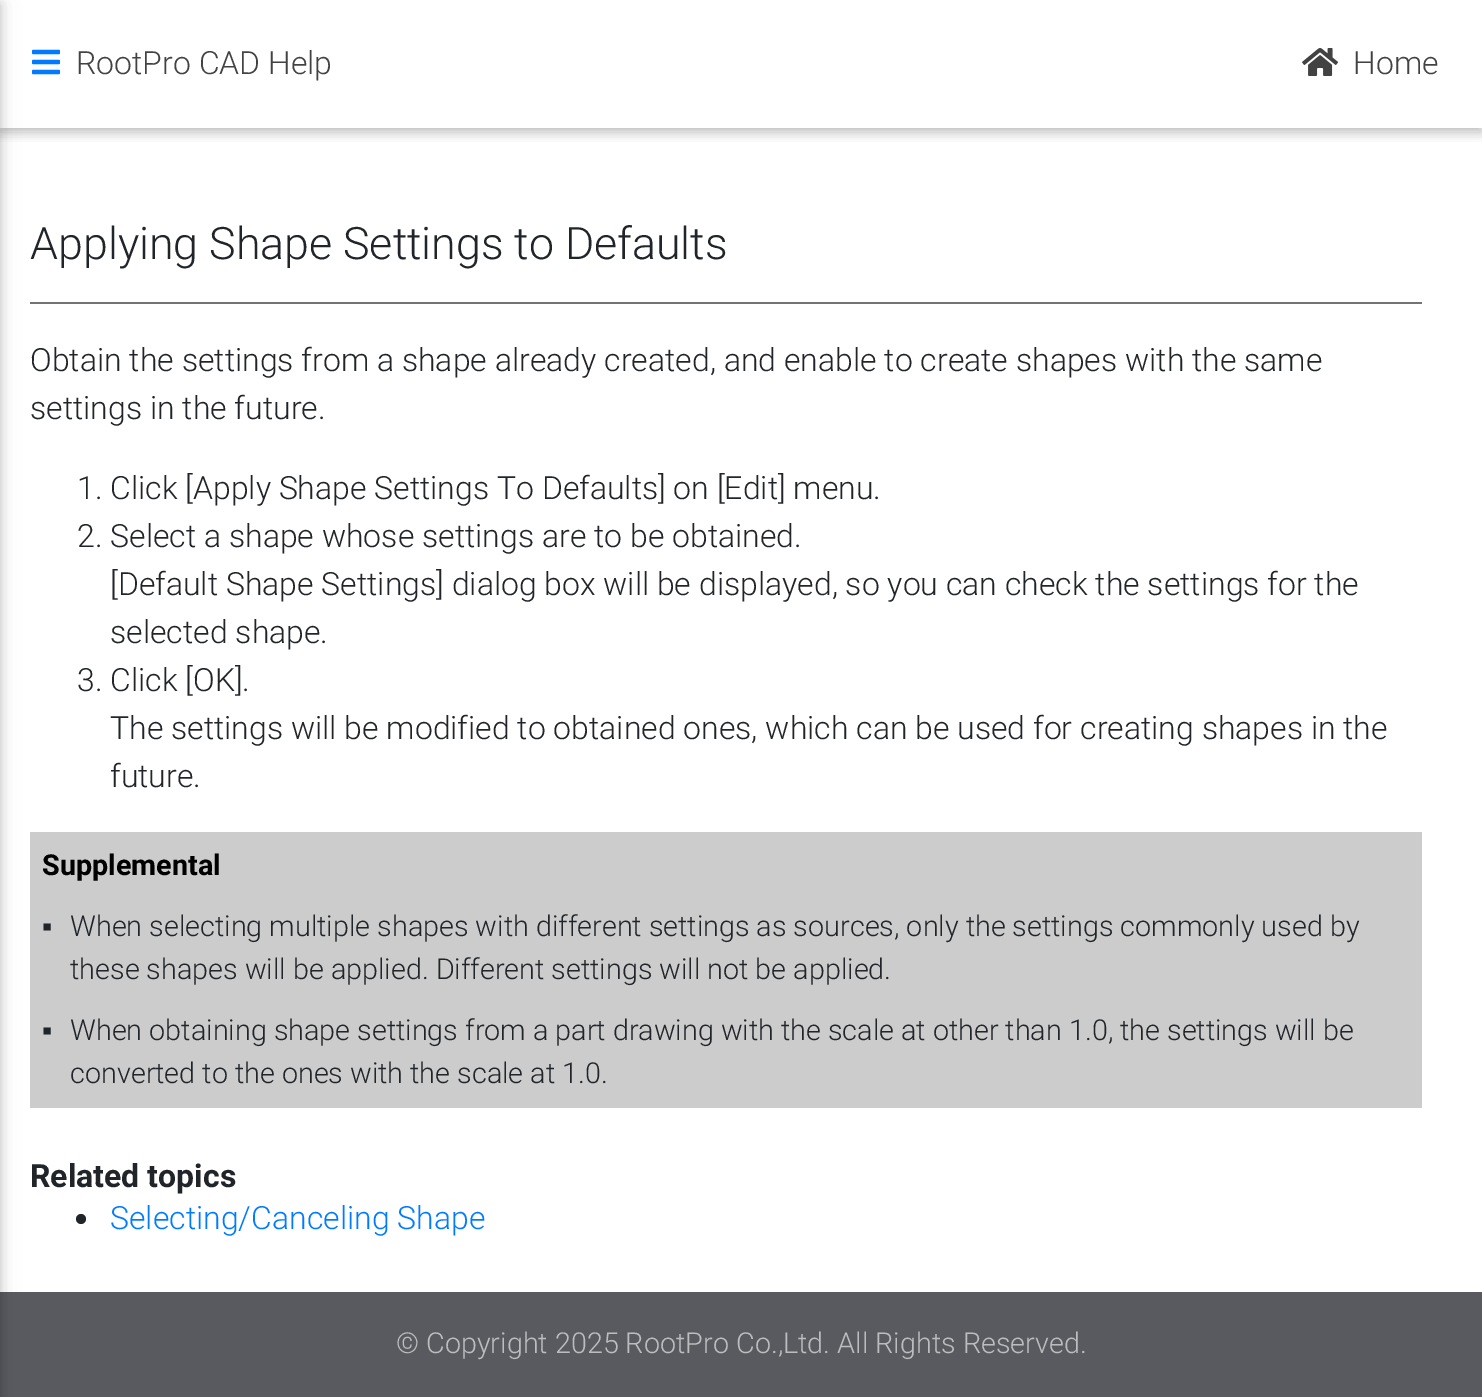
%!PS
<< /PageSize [1482 1397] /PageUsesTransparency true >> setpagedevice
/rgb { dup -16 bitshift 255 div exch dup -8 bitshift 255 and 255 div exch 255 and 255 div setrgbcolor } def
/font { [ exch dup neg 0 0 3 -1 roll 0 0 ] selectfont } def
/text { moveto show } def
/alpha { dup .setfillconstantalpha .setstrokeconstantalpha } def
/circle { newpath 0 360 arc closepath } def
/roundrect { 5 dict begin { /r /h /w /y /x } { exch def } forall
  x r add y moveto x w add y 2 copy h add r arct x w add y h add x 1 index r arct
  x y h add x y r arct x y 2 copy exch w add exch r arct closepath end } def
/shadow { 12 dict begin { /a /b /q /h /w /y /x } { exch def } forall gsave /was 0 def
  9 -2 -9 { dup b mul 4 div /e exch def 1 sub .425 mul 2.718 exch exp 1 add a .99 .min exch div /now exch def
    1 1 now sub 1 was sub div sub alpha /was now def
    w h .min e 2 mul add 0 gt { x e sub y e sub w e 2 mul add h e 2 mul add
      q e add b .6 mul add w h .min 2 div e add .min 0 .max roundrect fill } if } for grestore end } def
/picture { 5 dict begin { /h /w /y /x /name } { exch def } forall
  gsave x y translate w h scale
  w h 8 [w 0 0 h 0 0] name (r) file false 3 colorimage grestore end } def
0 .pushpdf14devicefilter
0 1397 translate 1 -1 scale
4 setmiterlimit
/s1 { /Roboto-Light 32 font 16#424242 rgb } def
/s2 { /Roboto-Light 44.75 font 16#212529 rgb } def
/s3 { /Roboto-Light 32 font 16#212529 rgb } def
/s4 { /Roboto-Bold 28.8 font 16#000000 rgb } def
/s5 { /LiberationSans-Regular 28.8 font 16#212529 rgb } def
/s6 { /Roboto-Light 28.8 font 16#212529 rgb } def
/s7 { /Roboto-Bold 32 font 16#212529 rgb } def
/s8 { /Roboto-Light 32 font 16#007BFF rgb } def
/s9 { /Roboto-Light 28.8 font 16#BDBDBF rgb } def
16#FFFFFF rgb
0 0 1482 1397 rectfill
16#737373 rgb
30 302 1392 2 rectfill
16#CCCCCC rgb
30 832 1392 276 rectfill
16#595A60 rgb
0 1292 1482 105 rectfill
16#000000 rgb
-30 4 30 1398 0 10 0.12 shadow
-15 4 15 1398 0 5 0.16 shadow
gsave
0 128 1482 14 rectclip
0 4 1482 128 0 10 0.12 shadow
grestore
gsave
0 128 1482 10 rectclip
0 4 1482 128 0 5 0.16 shadow
grestore
(pic1.raw) 32 49 28 26 picture
s1
(RootPro CAD Help) 76 74 text
(pic2.raw) 1302 48 36 28 picture
(Home) 1353 74 text
s2
(Applying Shape Settings to Defaults) 30 259 text
s3
(Obtain the settings from a shape already created, and enable to create shapes with the same) 30 371 text
(settings in the future.) 30 419 text
(1. Click [Apply Shape Settings To Defaults] on [Edit] menu.) 77 499 text
(2. Select a shape whose settings are to be obtained.) 77 547 text
([Default Shape Settings] dialog box will be displayed, so you can check the settings for the) 110 595 text
(selected shape.) 110 643 text
(3. Click [OK].) 77 691 text
(The settings will be modified to obtained ones, which can be used for creating shapes in the) 110 739 text
(future.) 110 787 text
s4
(Supplemental) 42 875 text
s5
(▪) 42 936 text
s6
(When selecting multiple shapes with different settings as sources, only the settings commonly used by) 70 936 text
(these shapes will be applied. Different settings will not be applied.) 70 979 text
s5
(▪) 42 1040 text
s6
(When obtaining shape settings from a part drawing with the scale at other than 1.0, the settings will be) 70 1040 text
(converted to the ones with the scale at 1.0.) 70 1083 text
s7
(Related topics) 30 1187 text
81 1219 5 circle fill
s8
(Selecting/Canceling Shape) 110 1229 text
s9
(© Copyright 2025 RootPro Co.,Ltd. All Rights Reserved.) 396 1353 text
.poppdf14devicefilter showpage
